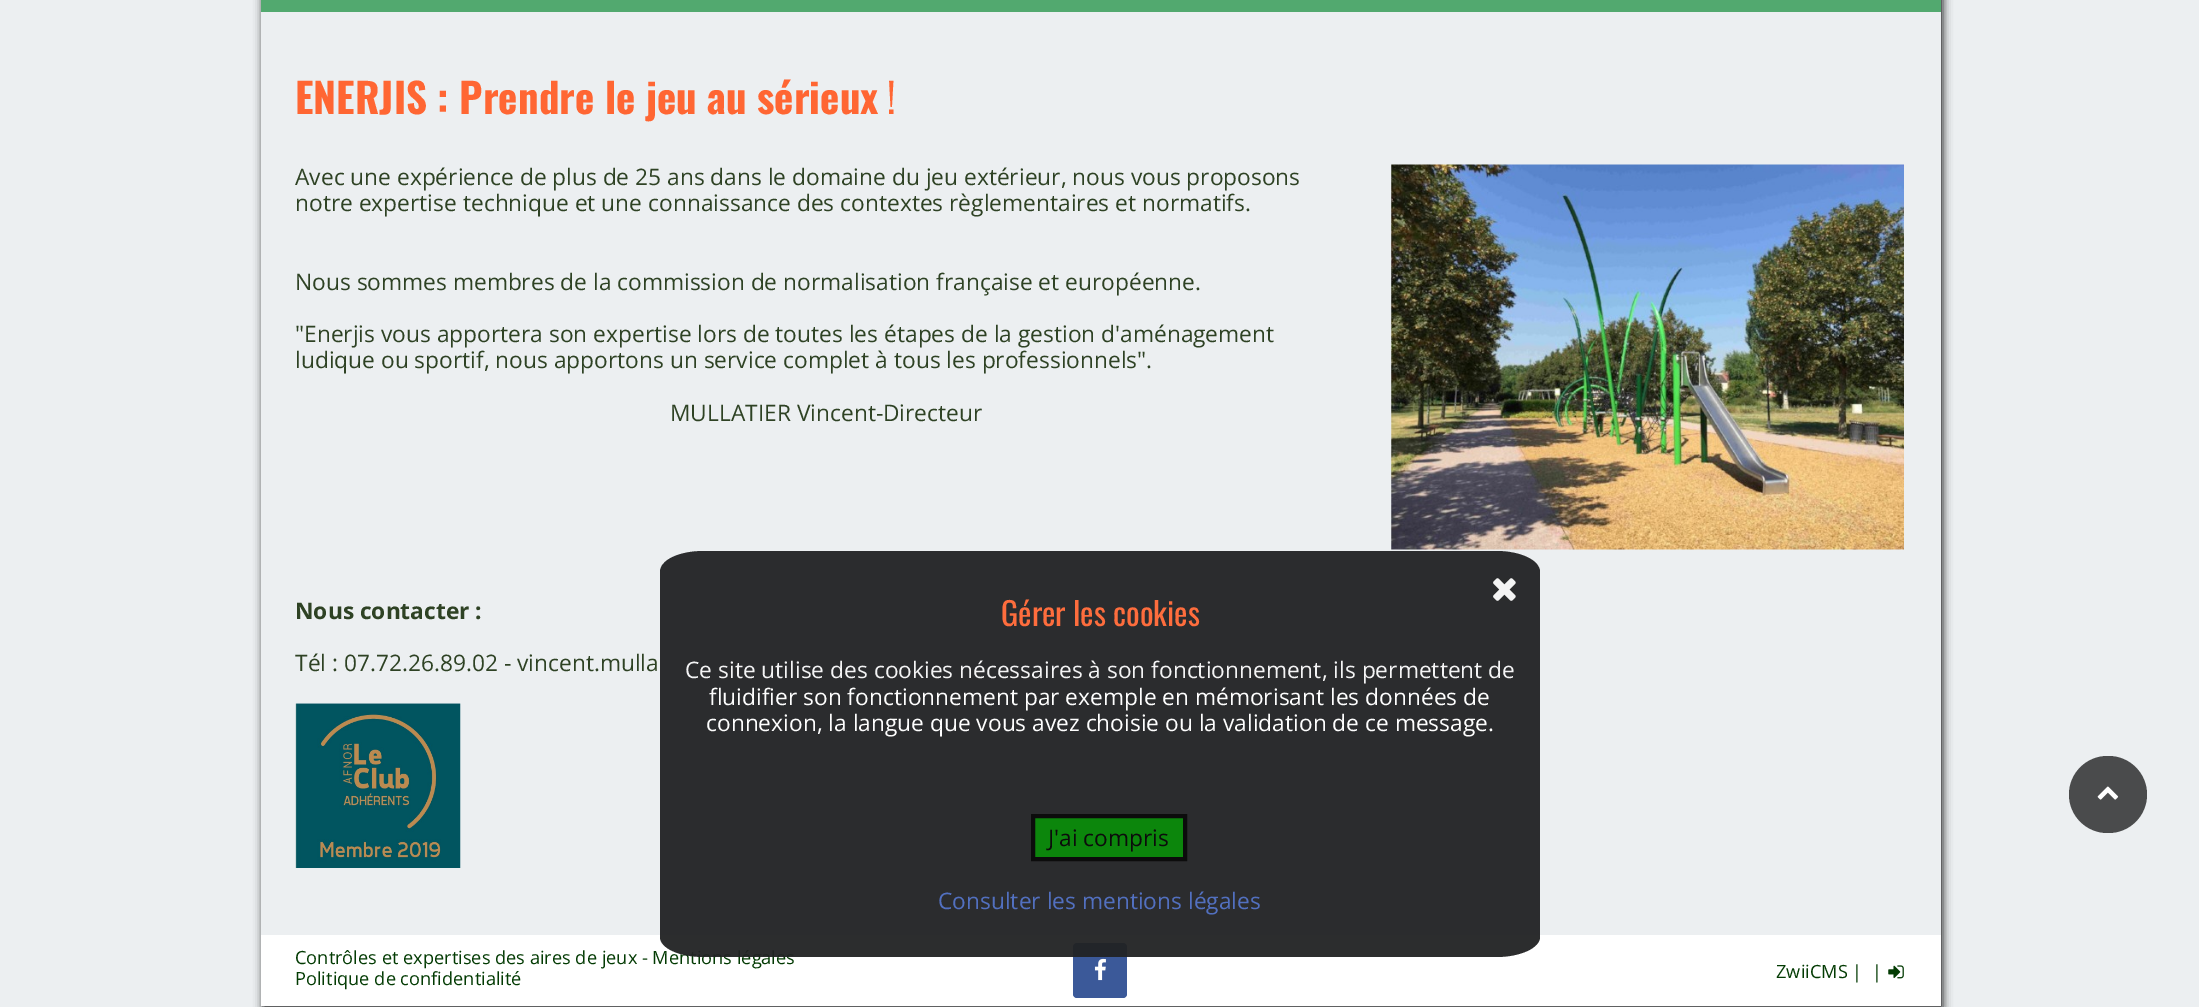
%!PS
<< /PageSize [2199 1007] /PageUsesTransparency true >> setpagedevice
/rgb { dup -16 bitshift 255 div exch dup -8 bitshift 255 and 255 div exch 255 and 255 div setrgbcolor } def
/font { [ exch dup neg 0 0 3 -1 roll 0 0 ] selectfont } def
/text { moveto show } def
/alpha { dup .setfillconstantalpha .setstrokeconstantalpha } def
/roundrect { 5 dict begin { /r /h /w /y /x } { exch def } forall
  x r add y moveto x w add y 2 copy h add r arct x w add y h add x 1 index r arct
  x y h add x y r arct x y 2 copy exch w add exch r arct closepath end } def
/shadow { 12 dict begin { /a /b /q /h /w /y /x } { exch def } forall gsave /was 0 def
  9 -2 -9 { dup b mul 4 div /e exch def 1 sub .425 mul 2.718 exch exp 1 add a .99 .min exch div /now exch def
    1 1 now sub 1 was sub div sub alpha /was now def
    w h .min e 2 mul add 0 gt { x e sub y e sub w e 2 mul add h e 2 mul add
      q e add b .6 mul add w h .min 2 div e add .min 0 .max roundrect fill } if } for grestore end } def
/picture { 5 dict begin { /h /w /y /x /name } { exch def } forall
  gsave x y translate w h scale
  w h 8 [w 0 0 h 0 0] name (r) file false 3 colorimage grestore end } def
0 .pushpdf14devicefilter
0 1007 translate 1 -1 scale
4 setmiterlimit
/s1 { /Oswald-Bold 41 font 16#FF6633 rgb } def
/s2 { /Oswald-Regular 41 font 16#FF6633 rgb } def
/s3 { /OpenSans-Regular 22.75 font 16#2E4224 rgb } def
/s4 { /OpenSans-Bold 22.75 font 16#2E4224 rgb } def
/s5 { /OpenSans-Regular 18.2 font 16#033B03 rgb } def
/s6 { /Oswald-Regular 32 font 16#FE6D3D rgb } def
/s7 { /OpenSans-Regular 22.75 font 16#F4F4F5 rgb } def
/s8 { /OpenSans-Regular 22.75 font 16#FEFEFE rgb } def
/s9 { /OpenSans-Regular 22.75 font 16#0C0C0C rgb } def
/s10 { /OpenSans-Regular 22.75 font 16#5270C0 rgb } def
16#ECEFF1 rgb
0 0 2199 1007 rectfill
gsave
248 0 moveto 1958 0 lineto 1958 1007 lineto 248 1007 lineto closepath 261 -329 moveto 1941 -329 lineto 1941 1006 lineto 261 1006 lineto closepath eoclip newpath
16#212223 rgb
263 -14 1680 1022 0 4.5 1 shadow
grestore
16#52A96F rgb
261 0 1680 12 rectfill
s1
(ENERJIS : Prendre le jeu au sérieux) 295 114 text
s2
(!) 887 114 text
s3
(Avec une expérience de plus de 25 ans dans le domaine du jeu extérieur, nous vous proposons) 295 185 text
(notre expertise technique et une connaissance des contextes règlementaires et normatifs.) 295 211 text
(Nous sommes membres de la commission de normalisation française et européenne.) 295 290 text
("Enerjis vous apportera son expertise lors de toutes les étapes de la gestion d'aménagement) 295 342 text
(ludique ou sportif, nous apportons un service complet à tous les professionnels".) 295 368 text
(MULLATIER Vincent-Directeur) 670 421 text
(pic1.raw) 1391 164 513 386 picture
s4
(Nous contacter :) 295 619 text
s3
(Tél : 07.72.26.89.02 - vincent.mulla) 295 671 text
(pic2.raw) 295 703 166 165 picture
16#FFFFFF rgb
261 935 1680 71 rectfill
s5
(Contrôles et expertises des aires de jeux - Mentions légales) 295 964 text
(Politique de confidentialité) 295 985 text
16#3B5999 rgb
1073 943 54 55 4 roundrect fill
(pic3.raw) 1094 958 12 23 picture
s5
(ZwiiCMS |) 1776 978 text
(|) 1872 978 text
(pic4.raw) 1888 965 16 14 picture
0.95 alpha
16#212223 rgb
704 551 moveto 1496 551 lineto 1520 551 1540 560 1540 572 curveto 1540 937 lineto 1540 948 1520 957 1496 957 curveto 704 957 lineto 679 957 660 948 660 937 curveto 660 572 lineto 660 560 679 551 704 551 curveto closepath fill
1 alpha
(pic5.raw) 1493 578 23 23 picture
s6
(Gérer les cookies) 1001 626 text
s7
(Ce site utilise des cookies nécessaires à son fonctionnement, ils permettent de) 685 678 text
s8
(fluidifier son fonctionnement par exemple en mémorisant les données de) 709 705 text
(connexion, la langue que vous avez choisie ou la validation de ce message.) 706 731 text
16#0C860C rgb
1033 816 moveto 1185 816 lineto 1185 859 lineto 1033 859 lineto closepath gsave fill grestore
16#0C0C0C rgb
4 setlinewidth
stroke
(J'ai compris) 1048 846 text
s10
(Consulter les mentions légales) 938 909 text
16#4A4B4C rgb
2069 756 78 77 38.5 roundrect fill
(pic6.raw) 2097 786 22 14 picture
.poppdf14devicefilter showpage
